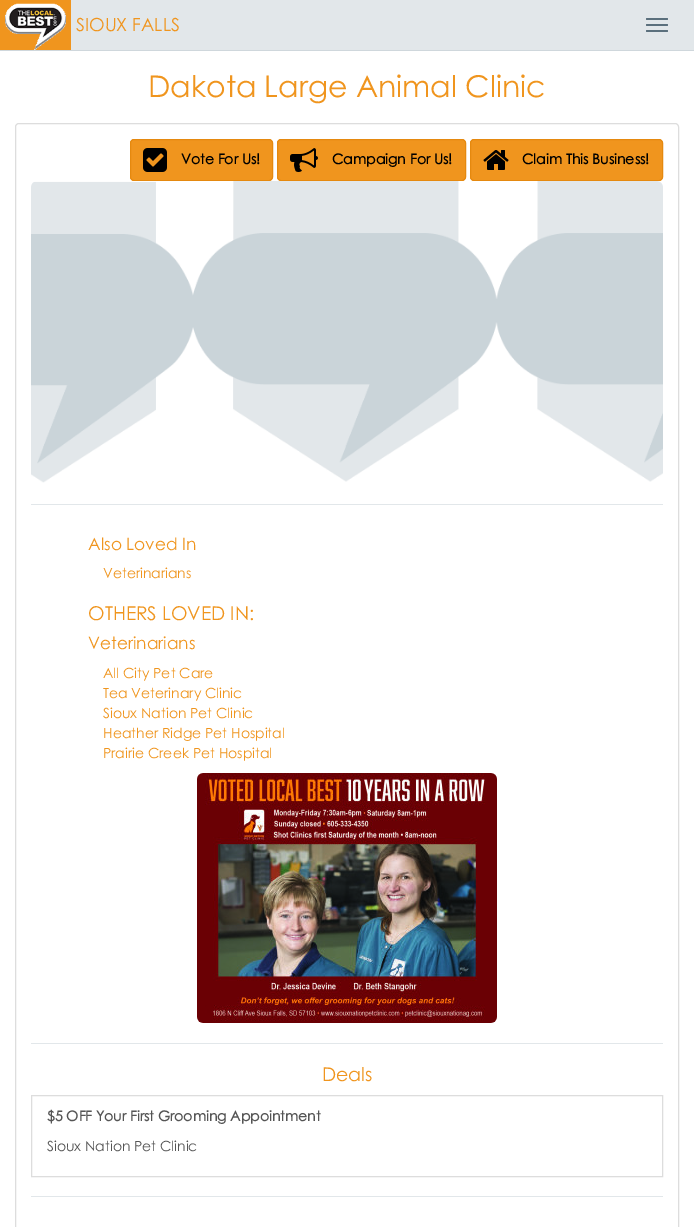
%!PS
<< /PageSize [694 1227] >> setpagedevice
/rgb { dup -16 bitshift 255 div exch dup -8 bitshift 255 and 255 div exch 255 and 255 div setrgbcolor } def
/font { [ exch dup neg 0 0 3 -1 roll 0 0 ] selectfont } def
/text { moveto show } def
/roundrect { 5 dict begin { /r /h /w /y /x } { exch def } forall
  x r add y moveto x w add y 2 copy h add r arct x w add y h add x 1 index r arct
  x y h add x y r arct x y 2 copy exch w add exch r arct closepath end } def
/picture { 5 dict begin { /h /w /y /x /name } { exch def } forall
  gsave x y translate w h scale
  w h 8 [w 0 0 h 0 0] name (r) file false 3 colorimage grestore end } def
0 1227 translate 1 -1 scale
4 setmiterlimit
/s1 { /CenturyGothic-Regular 18 font 16#F0951E rgb } def
/s2 { /CenturyGothic-Regular 30 font 16#F0951E rgb } def
/s3 { /CenturyGothic-Bold 14 font 16#000000 rgb } def
/s4 { /CenturyGothic-Regular 17 font 16#F0951E rgb } def
/s5 { /CenturyGothic-Regular 14 font 16#F0951E rgb } def
/s6 { /CenturyGothic-Regular 19 font 16#F0951E rgb } def
/s7 { /CenturyGothic-Bold 14 font 16#555555 rgb } def
/s8 { /CenturyGothic-Regular 14 font 16#555555 rgb } def
16#FFFFFF rgb
0 0 694 1227 rectfill
16#E2E7EA rgb
71 0 623 50 rectfill
16#CFD7DC rgb
0 50 694 1 rectfill
16#F0951E rgb
0 0 71 50 rectfill
(pic1.raw) 5 3 61 47 picture
s1
(SIOUX FALLS) 76 31 text
16#5B707D rgb
646 18 22 2 1 roundrect fill
646 24 22 2 1 roundrect fill
646 30 22 2 1 roundrect fill
s2
(Dakota Large Animal Clinic) 148 97 text
16#DDDDDD rgb
15.5 123.5 663 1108 3.5 roundrect stroke
16#F0951E rgb
130.5 139.5 142 41 3.5 roundrect gsave fill grestore
16#E5890F rgb
stroke
(pic2.raw) 143 148 24 24 picture
s3
(Vote For Us!) 181 164 text
16#F0951E rgb
277.5 139.5 188 41 3.5 roundrect gsave fill grestore
16#E5890F rgb
stroke
(pic3.raw) 290 148 28 24 picture
s3
(Campaign For Us!) 332 164 text
16#F0951E rgb
470.5 139.5 192 41 3.5 roundrect gsave fill grestore
16#E5890F rgb
stroke
(pic4.raw) 483 150 26 20 picture
s3
(Claim This Business!) 522 164 text
(pic5.raw) 31 181 632 302 picture
16#E2E7EA rgb
31 504 632 1 rectfill
s4
(Also Loved In) 88 550 text
s5
(Veterinarians) 103 578 text
s6
(OTHERS LOVED IN:) 88 620 text
s4
(Veterinarians) 88 649 text
s5
(All City Pet Care) 103 678 text
(Tea Veterinary Clinic) 103 698 text
(Sioux Nation Pet Clinic) 103 718 text
(Heather Ridge Pet Hospital) 103 738 text
(Prairie Creek Pet Hospital) 103 758 text
(pic6.raw) 197 773 300 250 picture
16#E2E7EA rgb
31 1043 632 1 rectfill
s6
(Deals) 322 1081 text
16#DDDDDD rgb
31.5 1095.5 631 81 rectstroke
s7
($5 OFF Your First Grooming Appointment) 47 1121 text
s8
(Sioux Nation Pet Clinic) 47 1151 text
16#E2E7EA rgb
31 1196 632 1 rectfill
showpage
